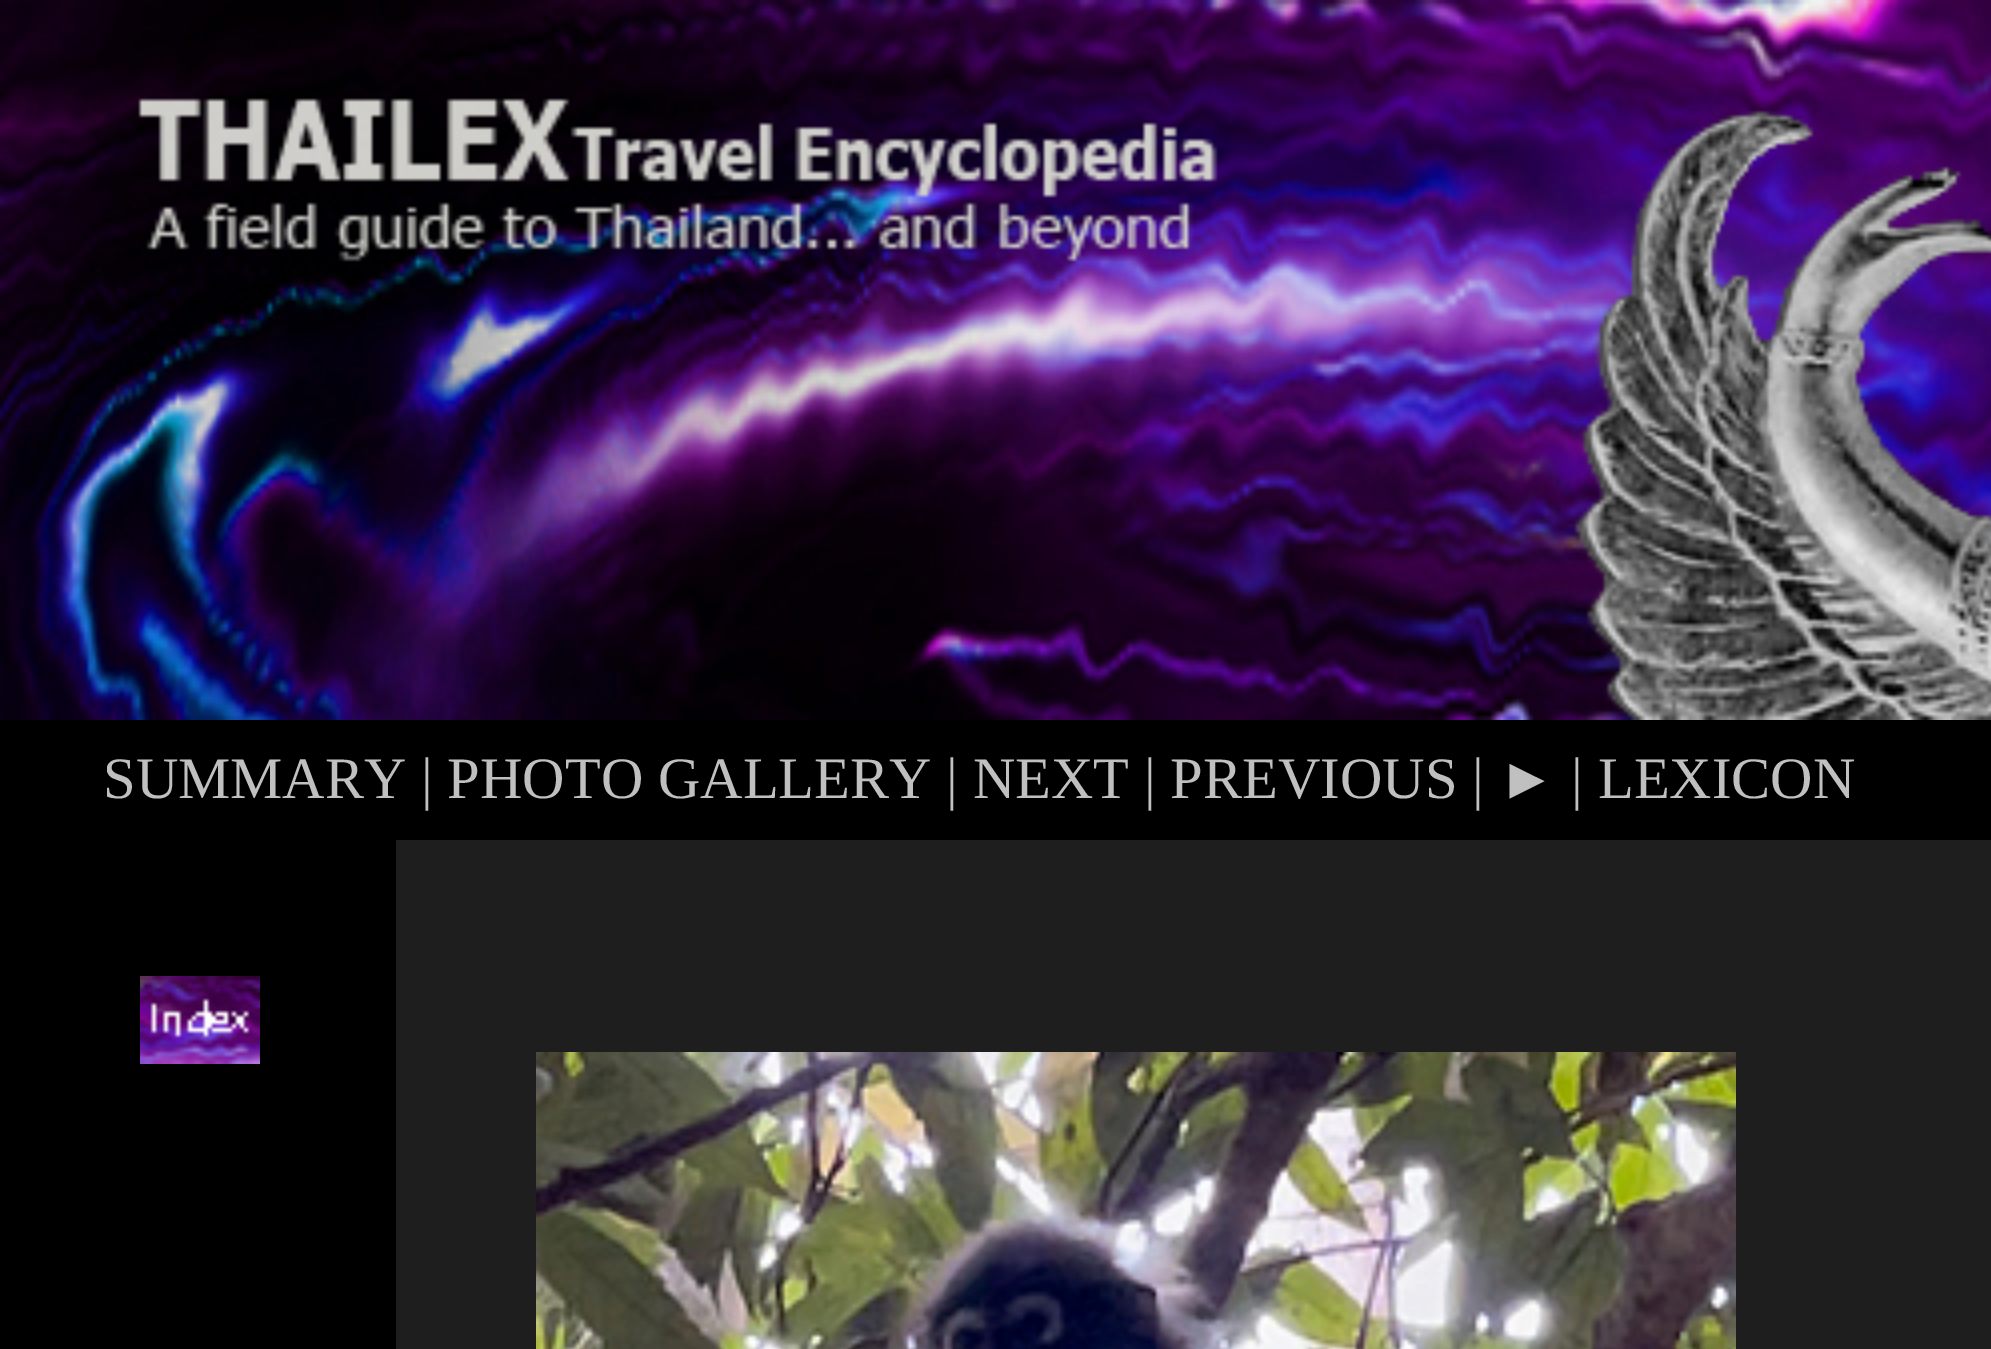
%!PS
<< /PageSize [1991 1349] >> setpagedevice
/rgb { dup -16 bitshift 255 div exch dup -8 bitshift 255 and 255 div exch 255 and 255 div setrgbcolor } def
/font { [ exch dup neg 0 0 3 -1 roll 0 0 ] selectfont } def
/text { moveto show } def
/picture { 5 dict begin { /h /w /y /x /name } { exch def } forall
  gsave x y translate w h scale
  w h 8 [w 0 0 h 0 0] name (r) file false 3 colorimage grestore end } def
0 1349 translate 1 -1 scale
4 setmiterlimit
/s1 { /LiberationSerif-Regular 58.7 font 16#C0C0C0 rgb } def
16#000000 rgb
0 0 1991 1349 rectfill
(pic1.raw) 0 0 1991 720 picture
s1
(SUMMARY | PHOTO GALLERY | NEXT | PREVIOUS | ► | LEXICON) 103 798 text
(pic2.raw) 140 976 120 88 picture
16#1E1E1E rgb
396 840 1595 509 rectfill
(pic3.raw) 536 1052 1200 297 picture
showpage
